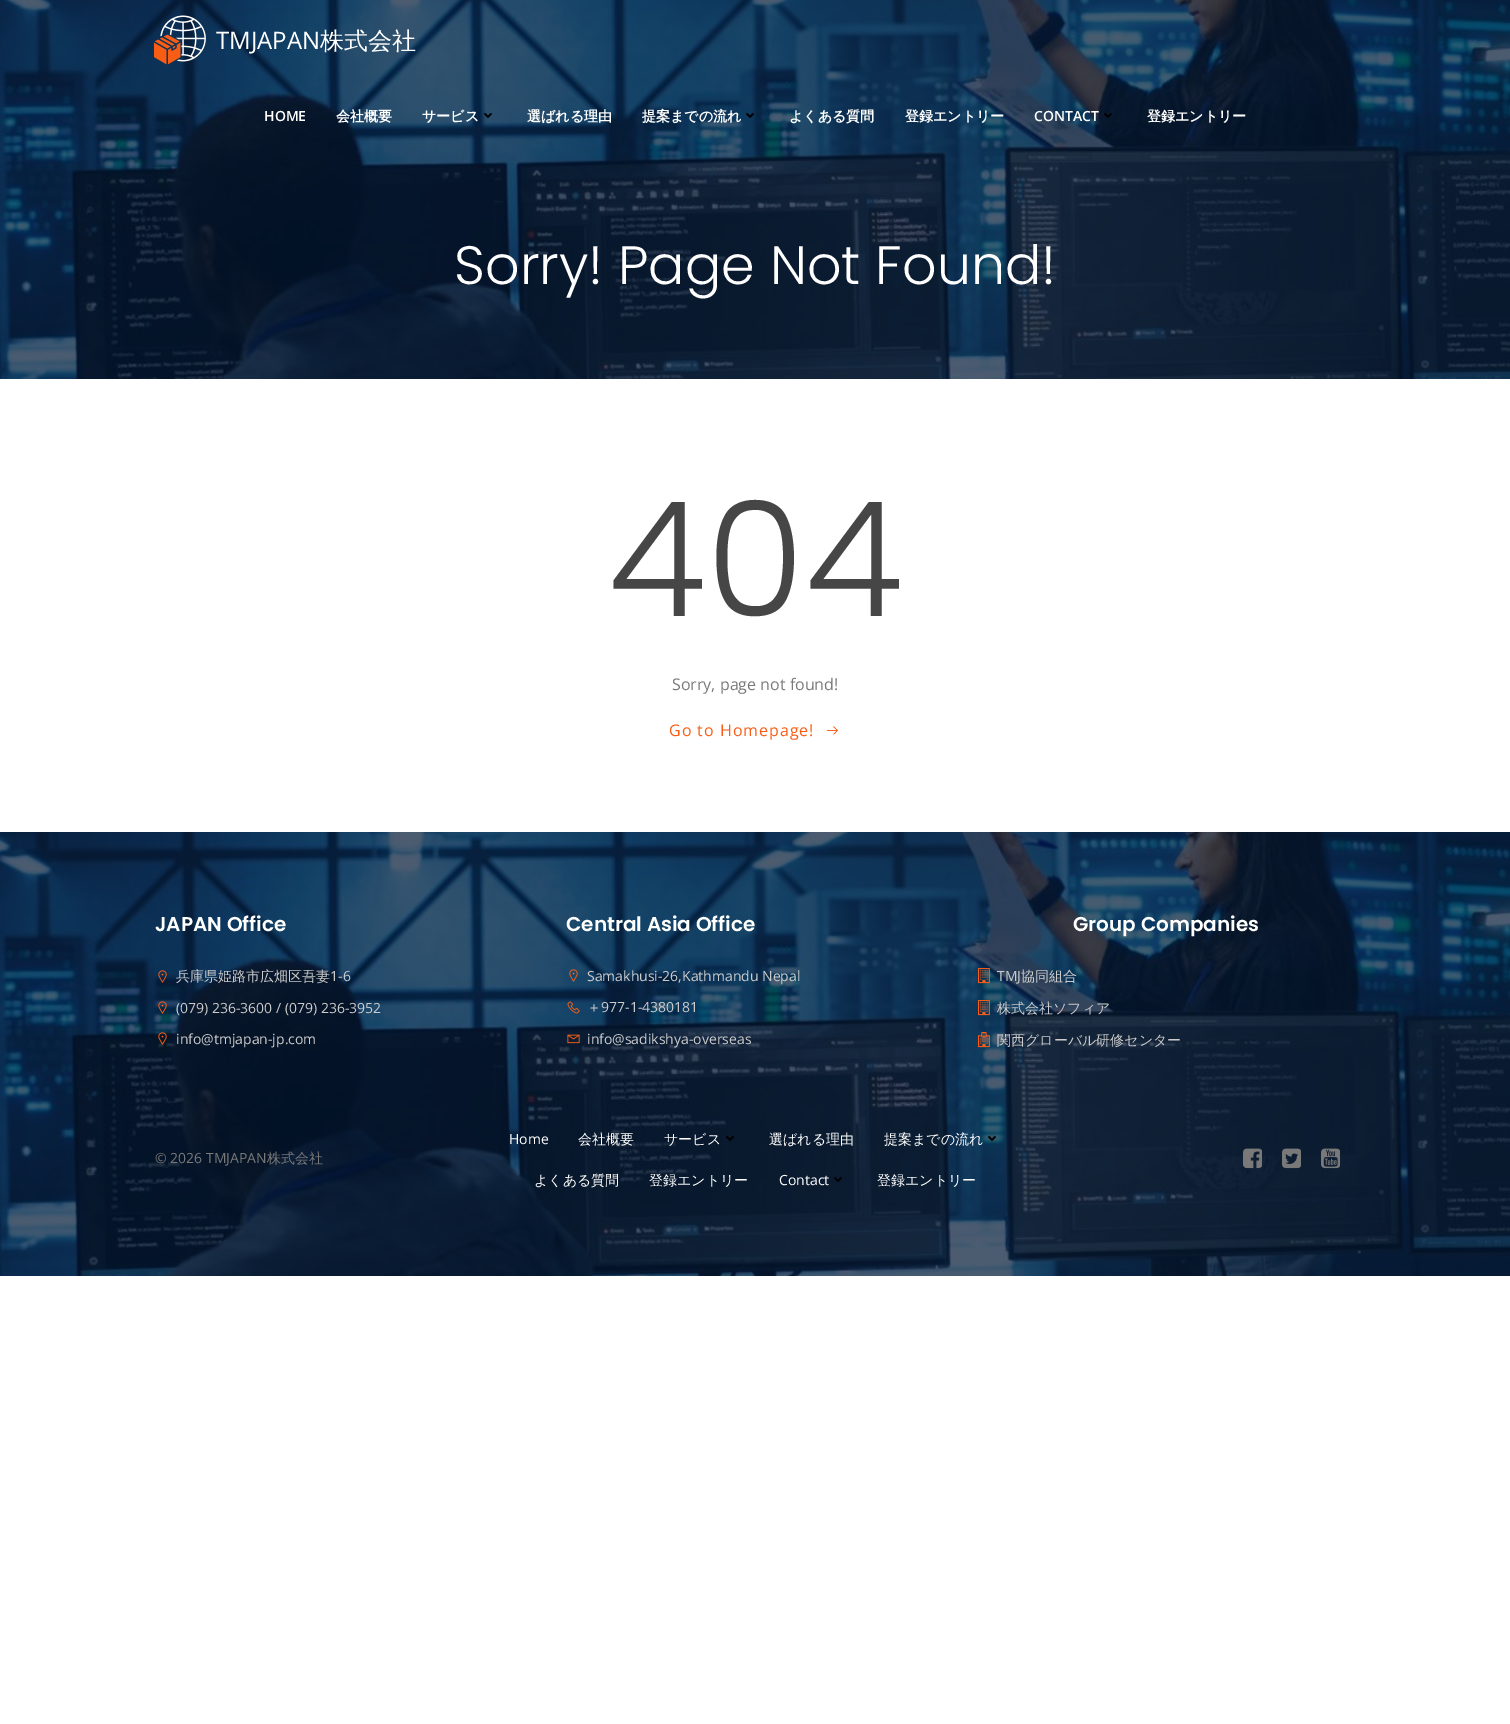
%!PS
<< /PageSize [1510 1724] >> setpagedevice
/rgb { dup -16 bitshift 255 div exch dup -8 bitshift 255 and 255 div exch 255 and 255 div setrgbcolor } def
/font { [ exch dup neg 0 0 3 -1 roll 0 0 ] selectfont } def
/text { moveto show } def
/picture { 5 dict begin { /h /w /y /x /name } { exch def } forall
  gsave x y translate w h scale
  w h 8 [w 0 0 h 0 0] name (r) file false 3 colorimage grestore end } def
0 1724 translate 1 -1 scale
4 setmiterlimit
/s1 { /OpenSans-Regular 24 font 16#FFFFFF rgb } def
/s2 { /WenQuanYiZenHei-Medium 24 font 16#FFFFFF rgb } def
/s3 { /OpenSans-SemiBold 14 font 16#FFFFFF rgb } def
/s4 { /WenQuanYiZenHei-Bold 14 font 16#FFFFFF rgb } def
/s5 { /Poppins-Light 54 font 16#FFFFFF rgb } def
/s6 { /Poppins-Light 160 font 16#464646 rgb } def
/s7 { /OpenSans-Regular 16 font 16#797979 rgb } def
/s8 { /Poppins-SemiBold 20 font 16#FFFFFF rgb } def
/s9 { /WenQuanYiZenHei-Medium 14 font 16#CCCCCC rgb } def
/s10 { /OpenSans-Regular 14 font 16#CCCCCC rgb } def
/s11 { /OpenSans-Regular 14 font 16#797979 rgb } def
/s12 { /WenQuanYiZenHei-Medium 14 font 16#797979 rgb } def
/s13 { /OpenSans-Regular 14 font 16#FFFFFF rgb } def
/s14 { /WenQuanYiZenHei-Medium 14 font 16#FFFFFF rgb } def
16#FFFFFF rgb
0 0 1510 1724 rectfill
(pic5.raw) 0 0 1510 379 picture
(pic1.raw) 154 15 52 50 picture
s1
(TMJAPAN) 216 49 text
s2
(株式会社) 320 49 text
s3
(HOME) 264 121 text
s4
(会社概要) 336 121 text
(サービス) 422 121 text
(pic2.raw) 484 113 8 5 picture
(選ばれる理由) 527 121 text
(提案までの流れ) 642 121 text
(pic3.raw) 746 113 8 5 picture
(よくある質問) 789 121 text
(登録エントリー) 905 121 text
s3
(CONTACT) 1034 121 text
(pic4.raw) 1104 113 8 5 picture
s4
(登録エントリー) 1147 121 text
s5
(Sorry! Page Not Found!) 454 284 text
s6
(404) 608 616 text
s7
(Sorry, page not found!) 672 690 text
16#F85D15 rgb
669 736 moveto 1 0 (Go to Homepage!) ashow
(pic6.raw) 826 726 12 9 picture
(pic7.raw) 0 832 1510 444 picture
s8
(JAPAN Office) 155 931 text
(pic8.raw) 158 970 9 13 picture
s9
(兵庫県姫路市広畑区吾妻) 176 981 text
s10
(1-6) 330 981 text
(pic9.raw) 158 1001 9 13 picture
(\(079\) 236-3600 / \(079\) 236-3952) 176 1013 text
(pic10.raw) 158 1032 9 13 picture
(info@tmjapan-jp.com) 176 1044 text
s8
(Central Asia Office) 566 931 text
(pic11.raw) 569 969 9 13 picture
s10
(Samakhusi-26,Kathmandu Nepal) 587 981 text
(pic12.raw) 567 1001 13 13 picture
s9
(＋) 587 1012 text
s10
(977-1-4380181) 601 1012 text
(pic13.raw) 567 1034 13 10 picture
(info@sadikshya-overseas) 587 1044 text
s8
(Group Companies) 1073 931 text
(pic14.raw) 978 968 12 16 picture
s10
(TMJ) 997 981 text
s9
(協同組合) 1021 981 text
(pic15.raw) 978 1000 12 16 picture
(株式会社ソフィア) 997 1013 text
(pic16.raw) 978 1032 12 16 picture
(関西グローバル研修センター) 997 1045 text
s11
(© 2026 TMJAPAN) 155 1163 text
s12
(株式会社) 267 1163 text
s13
(Home) 509 1144 text
s14
(会社概要) 578 1144 text
(サービス) 664 1144 text
(pic17.raw) 726 1136 8 5 picture
(選ばれる理由) 769 1144 text
(提案までの流れ) 884 1144 text
(pic18.raw) 988 1136 8 5 picture
(よくある質問) 534 1185 text
(登録エントリー) 649 1185 text
s13
(Contact) 779 1185 text
(pic19.raw) 834 1177 8 5 picture
s14
(登録エントリー) 877 1185 text
(pic20.raw) 1243 1148 19 21 picture
(pic21.raw) 1282 1148 19 21 picture
(pic22.raw) 1321 1148 19 21 picture
showpage
